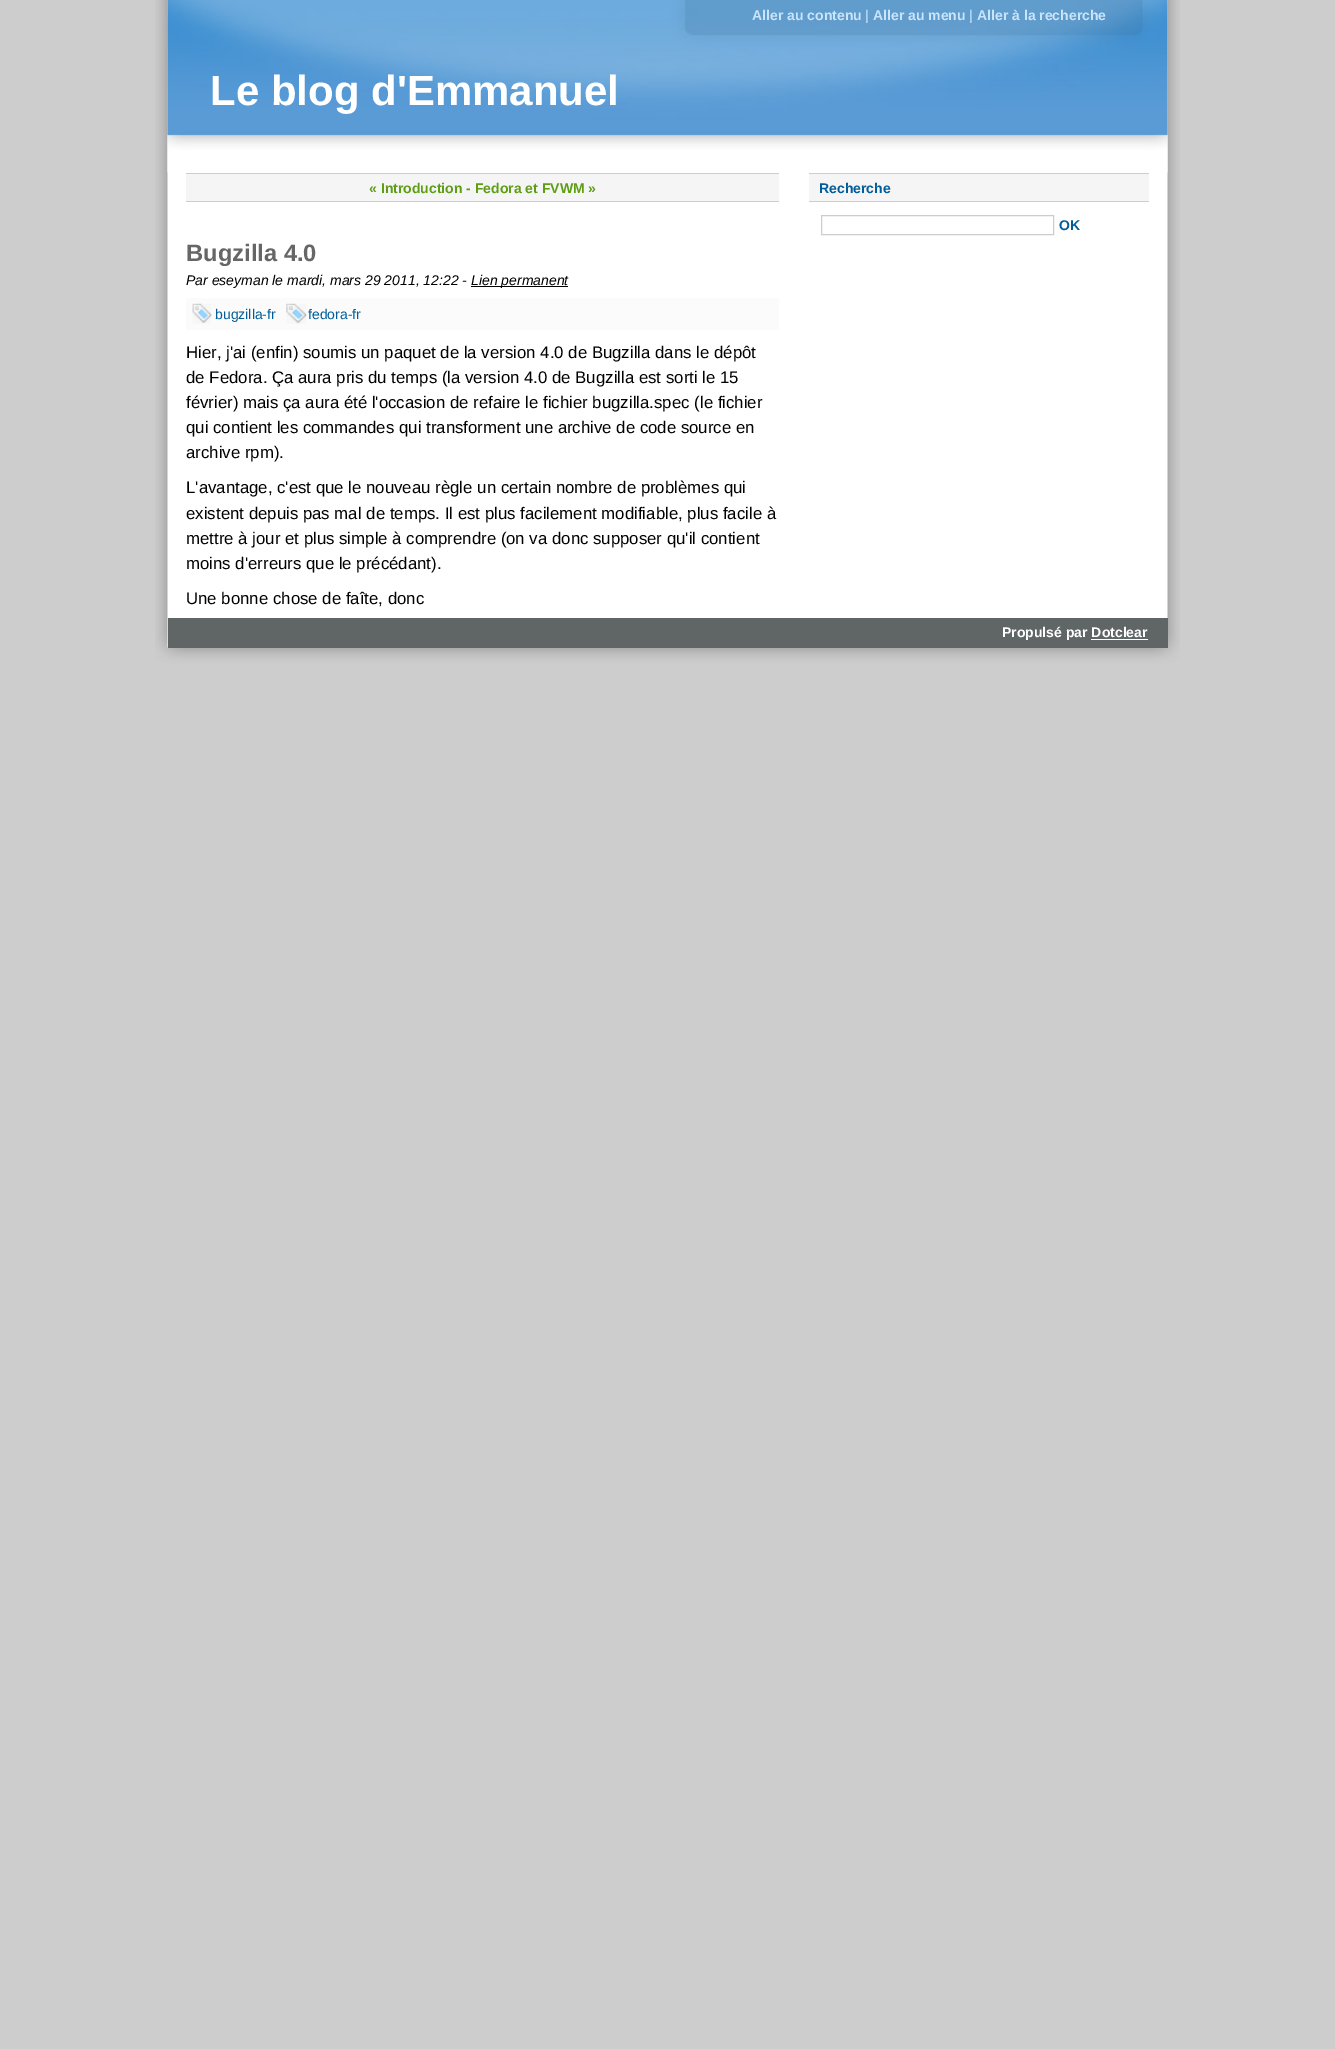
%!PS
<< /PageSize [1335 2049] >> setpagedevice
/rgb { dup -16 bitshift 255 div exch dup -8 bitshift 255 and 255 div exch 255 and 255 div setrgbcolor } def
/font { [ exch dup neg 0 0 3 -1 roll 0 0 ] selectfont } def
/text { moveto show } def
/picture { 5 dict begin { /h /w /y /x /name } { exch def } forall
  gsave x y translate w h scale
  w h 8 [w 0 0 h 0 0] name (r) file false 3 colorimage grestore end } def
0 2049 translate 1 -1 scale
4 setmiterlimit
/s1 { /LiberationSans-Bold 14 font 16#CAE4FC rgb } def
/s2 { /LiberationSans-Regular 14 font 16#CAE4FC rgb } def
/s3 { /LiberationSans-Bold 42 font 16#FFFFFF rgb } def
/s4 { /LiberationSans-Bold 14 font 16#5E9E14 rgb } def
/s5 { /LiberationSans-Bold 23.75 font 16#666666 rgb } def
/s6 { /LiberationSans-Italic 14 font 16#000000 rgb } def
/s7 { /LiberationSans-Regular 14 font 16#005D99 rgb } def
/s8 { /LiberationSans-Regular 16.8 font 16#000000 rgb } def
/s9 { /LiberationSans-Bold 14 font 16#005D99 rgb } def
/s10 { /LiberationSans-Bold 14 font 16#FFFFFF rgb } def
16#CDCDCD rgb
0 0 1335 2049 rectfill
(pic1.raw) 155 0 1025 630 picture
(pic2.raw) 167 0 1001 173 picture
s1
(Aller au contenu) 752 20 text
s2
(|) 865 20 text
s1
(Aller au menu) 873 20 text
s2
(|) 969 20 text
s1
(Aller à la recherche) 977 20 text
s3
(Le blog d'Emmanuel) 210 105 text
16#F5F5F5 rgb
186 174 593 27 rectfill
16#CDCDCD rgb
186 173 593 1 rectfill
186 201 593 1 rectfill
s4
(« Introduction - Fedora et FVWM ») 369 193 text
s5
(Bugzilla 4.0) 186 261 text
s6
(Par eseyman le mardi, mars 29 2011, 12:22 -) 186 285 text
471 286 97 1 rectfill
(Lien permanent) 471 285 text
16#FBFBFB rgb
186 298 593 32 rectfill
(pic3.raw) 192 303 20 21 picture
s7
(bugzilla-fr) 215 319 text
(pic4.raw) 286 303 21 21 picture
(fedora-fr) 308 319 text
s8
(Hier, j'ai \(enfin\) soumis un paquet de la version 4.0 de Bugzilla dans le dépôt) 186 358 text
(de Fedora. Ça aura pris du temps \(la version 4.0 de Bugzilla est sorti le 15) 186 383 text
(février\) mais ça aura été l'occasion de refaire le fichier bugzilla.spec \(le fichier) 186 408 text
(qui contient les commandes qui transforment une archive de code source en) 186 433 text
(archive rpm\).) 186 458 text
(L'avantage, c'est que le nouveau règle un certain nombre de problèmes qui) 186 493 text
(existent depuis pas mal de temps. Il est plus facilement modifiable, plus facile à) 186 519 text
(mettre à jour et plus simple à comprendre \(on va donc supposer qu'il contient) 186 544 text
(moins d'erreurs que le précédant\).) 186 569 text
(Une bonne chose de faîte, donc) 186 604 text
16#F5F5F5 rgb
809 174 340 27 rectfill
16#CDCDCD rgb
809 173 340 1 rectfill
809 201 340 1 rectfill
s9
(Recherche) 819 193 text
16#CDCDCD rgb
821.5 215.5 232 19 rectstroke
s9
(OK) 1059 230 text
(pic5.raw) 155 630 1025 35 picture
16#606666 rgb
168 618 1000 30 rectfill
s10
(Propulsé par Dotclear) 1002 637 text
1091 639 57 1 rectfill
showpage
